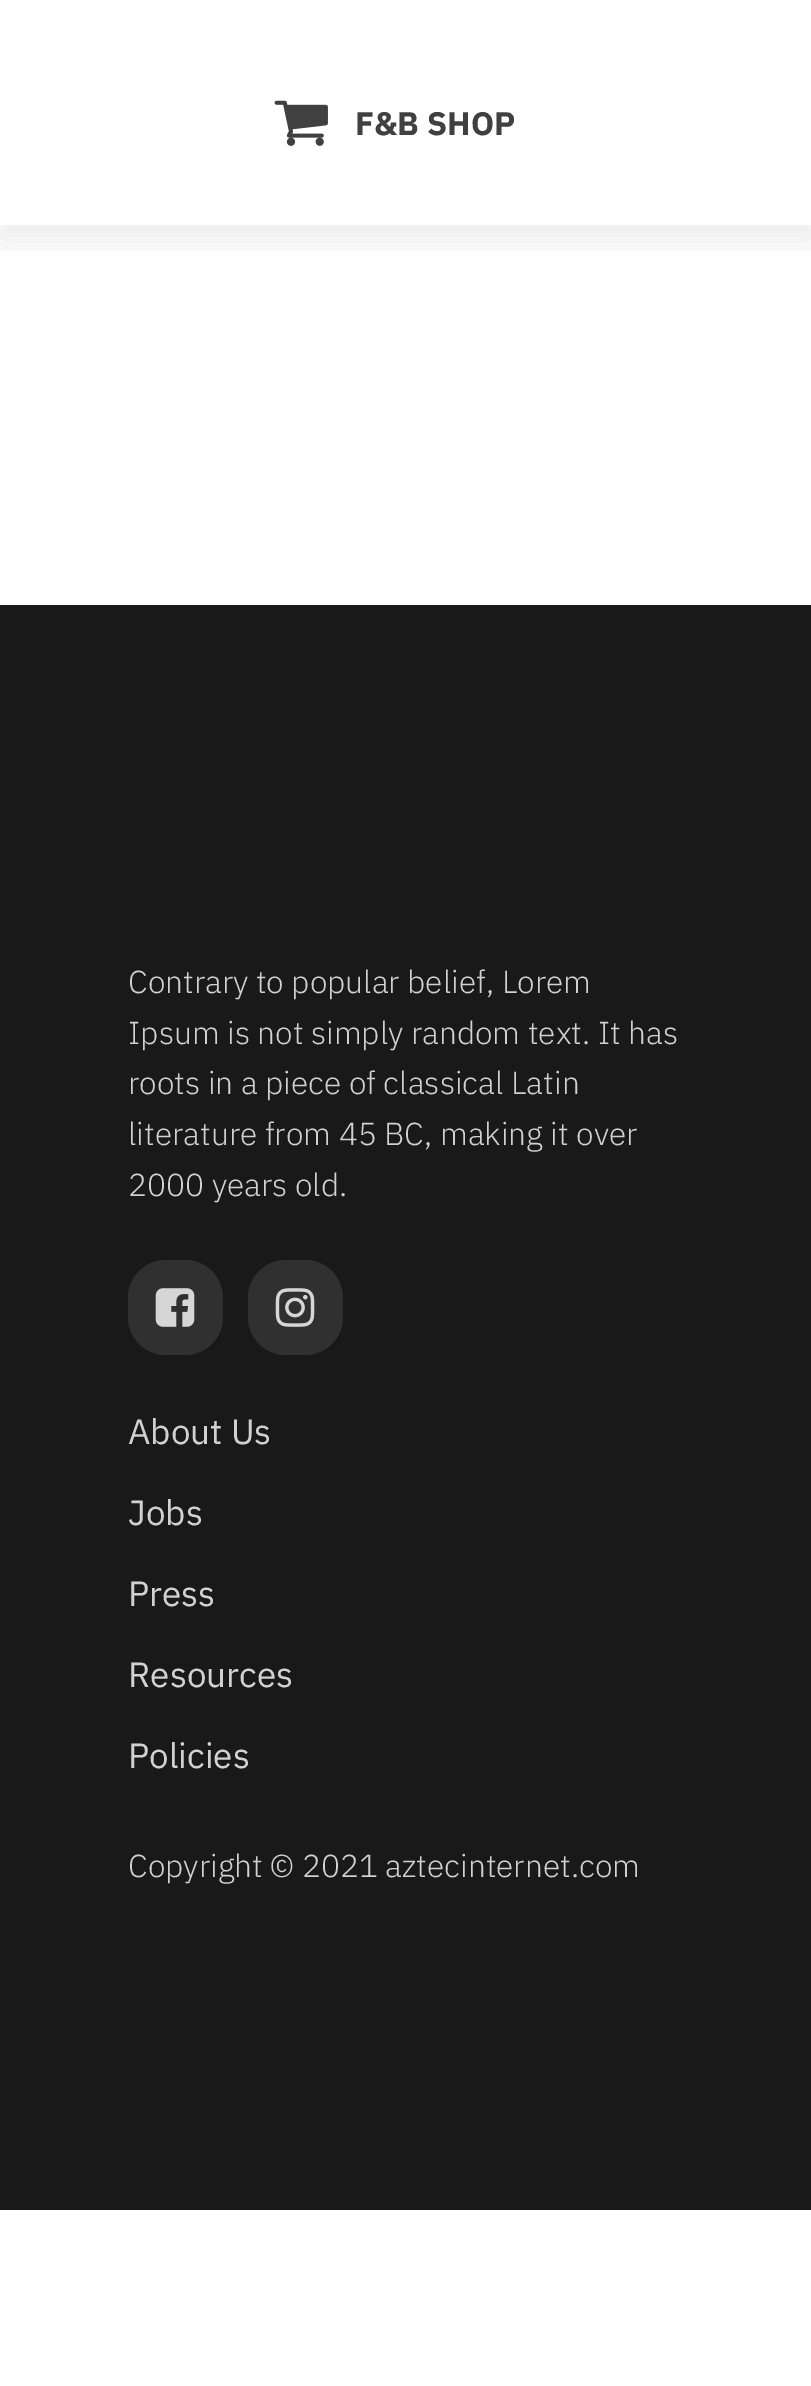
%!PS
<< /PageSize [811 2386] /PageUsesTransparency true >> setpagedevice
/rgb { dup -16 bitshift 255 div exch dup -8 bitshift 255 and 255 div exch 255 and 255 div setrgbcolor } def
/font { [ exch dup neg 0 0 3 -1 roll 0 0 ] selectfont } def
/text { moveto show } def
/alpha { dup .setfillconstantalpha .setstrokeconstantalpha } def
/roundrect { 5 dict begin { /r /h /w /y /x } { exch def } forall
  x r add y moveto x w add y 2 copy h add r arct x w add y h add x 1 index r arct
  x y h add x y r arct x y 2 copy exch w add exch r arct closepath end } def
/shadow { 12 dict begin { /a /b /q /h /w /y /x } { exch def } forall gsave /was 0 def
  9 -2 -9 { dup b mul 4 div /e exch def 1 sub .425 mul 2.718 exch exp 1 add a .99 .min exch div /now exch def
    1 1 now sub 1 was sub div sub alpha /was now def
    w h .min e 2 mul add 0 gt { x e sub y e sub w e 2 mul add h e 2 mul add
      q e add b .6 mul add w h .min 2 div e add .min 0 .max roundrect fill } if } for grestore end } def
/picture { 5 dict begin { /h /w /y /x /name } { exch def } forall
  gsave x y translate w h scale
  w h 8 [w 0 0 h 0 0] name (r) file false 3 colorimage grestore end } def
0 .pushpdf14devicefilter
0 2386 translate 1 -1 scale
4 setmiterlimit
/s1 { /IBMPlexSans-Bold 32.5 font 16#404040 rgb } def
/s2 { /IBMPlexSans-Light 31.75 font 16#D1D1D1 rgb } def
/s3 { /IBMPlexSans-Regular 35 font 16#D1D1D1 rgb } def
16#FFFFFF rgb
0 0 811 2386 rectfill
gsave
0 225 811 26 rectclip
16#000000 rgb
0 13 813 225 0 19 0.08 shadow
grestore
(pic1.raw) 274 100 54 46 picture
s1
(F&B SHOP) 355 135 text
16#191919 rgb
0 605 811 1605 rectfill
s2
(Contrary to popular belief, Lorem) 128 993 text
(Ipsum is not simply random text. It has) 128 1044 text
(roots in a piece of classical Latin) 128 1094 text
(literature from 45 BC, making it over) 128 1145 text
(2000 years old.) 128 1196 text
16#303030 rgb
128 1260 95 95 38 roundrect fill
(pic2.raw) 155 1288 40 39 picture
248 1260 95 95 38 roundrect fill
(pic3.raw) 275 1288 40 39 picture
s3
(About Us) 128 1444 text
(Jobs) 128 1525 text
(Press) 128 1606 text
(Resources) 128 1687 text
(Policies) 128 1768 text
s2
(Copyright © 2021 aztecinternet.com) 128 1877 text
.poppdf14devicefilter showpage
